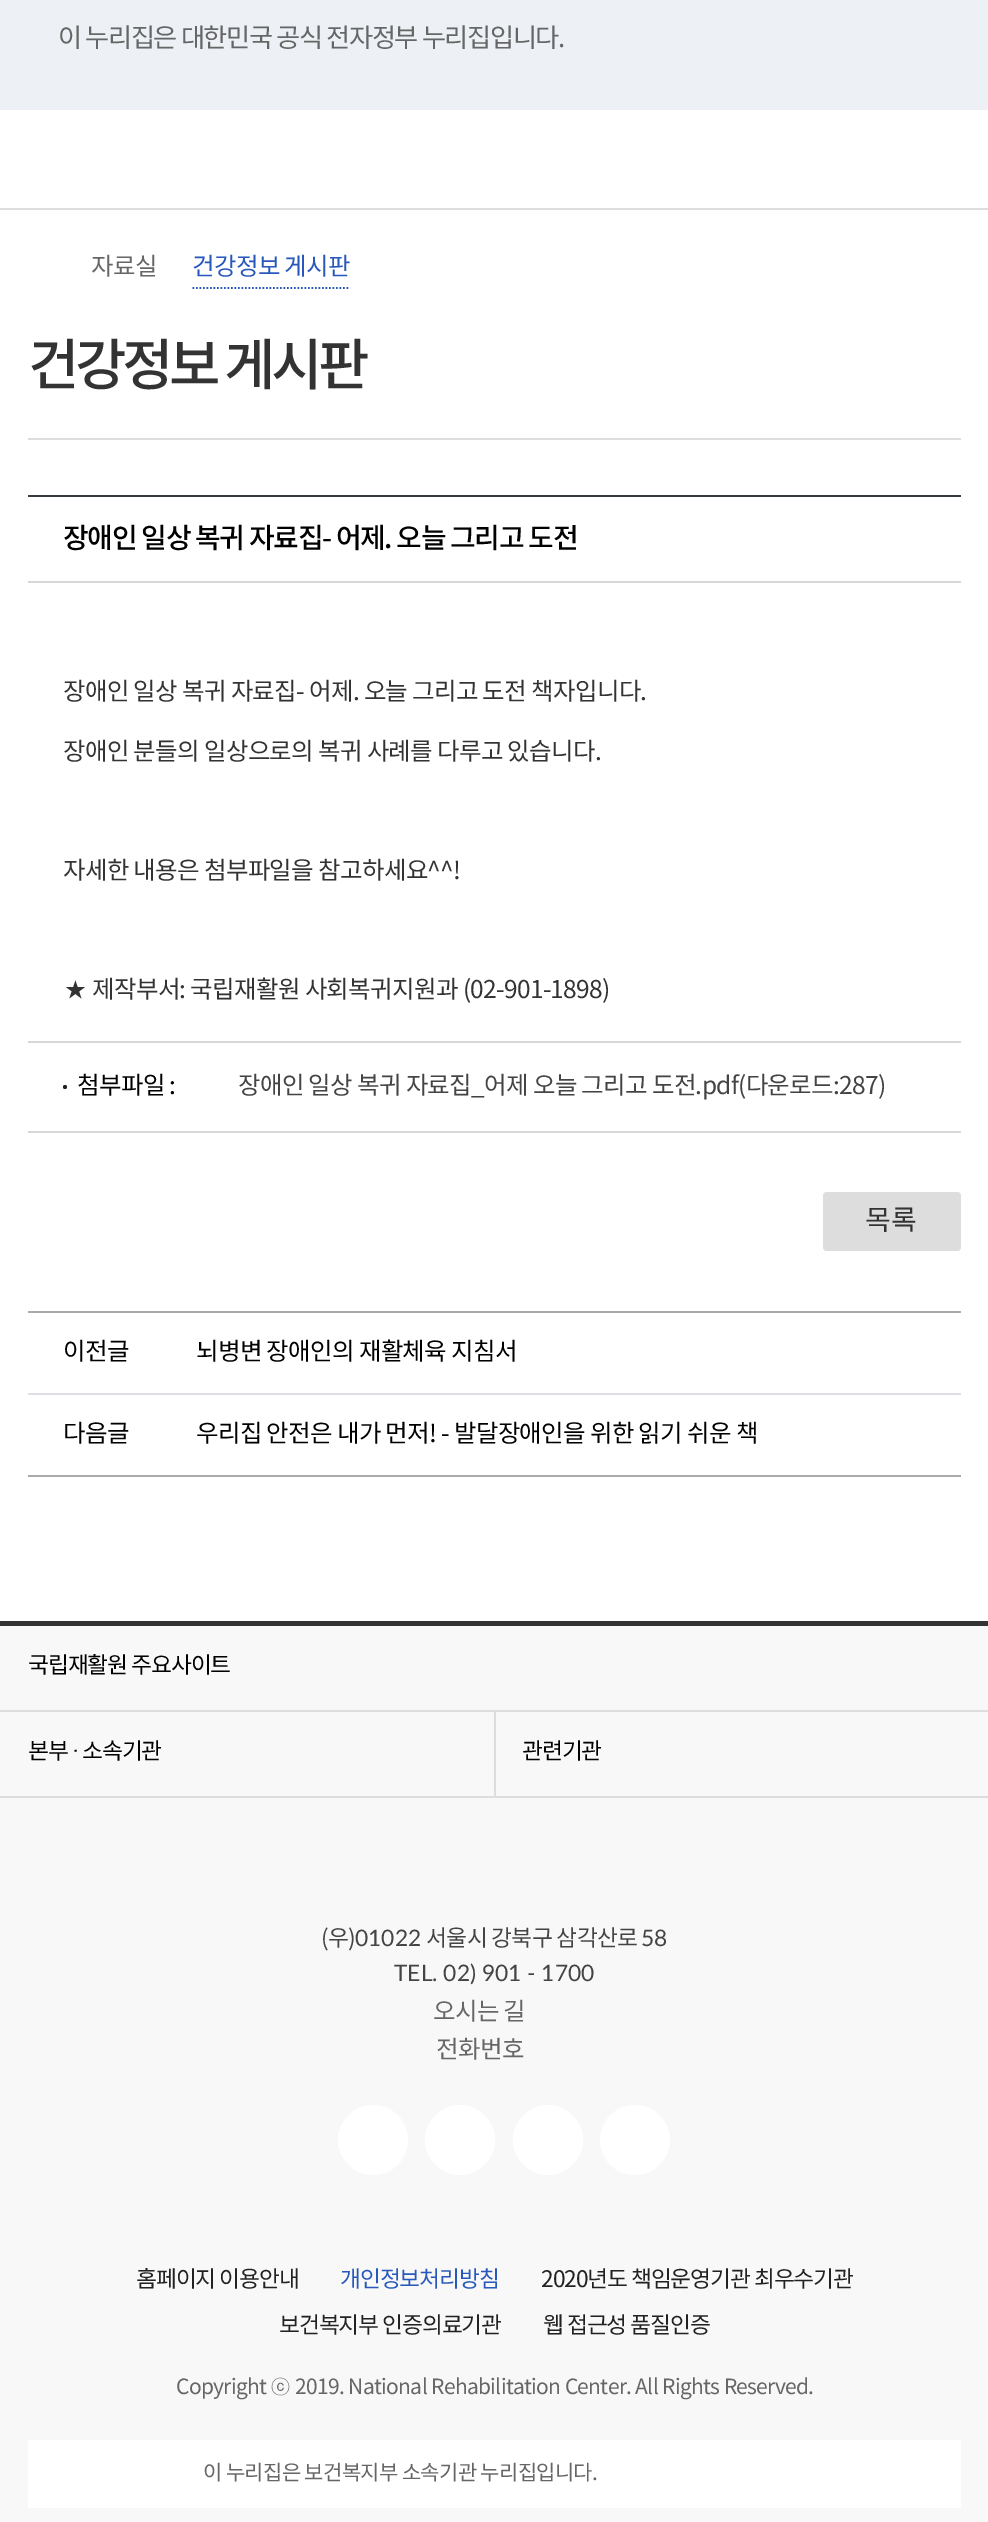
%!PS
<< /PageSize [988 2522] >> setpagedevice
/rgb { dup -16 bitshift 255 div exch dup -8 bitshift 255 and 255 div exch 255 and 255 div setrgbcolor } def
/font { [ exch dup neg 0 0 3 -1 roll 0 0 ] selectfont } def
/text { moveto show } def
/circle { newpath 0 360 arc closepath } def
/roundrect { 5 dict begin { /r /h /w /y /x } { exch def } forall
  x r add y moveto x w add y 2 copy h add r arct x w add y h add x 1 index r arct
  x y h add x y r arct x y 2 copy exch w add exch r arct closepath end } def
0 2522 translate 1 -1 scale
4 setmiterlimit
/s1 { /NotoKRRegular-Regular 28 font 16#333333 rgb } def
/s2 { /Lato-Regular 22.75 font 16#444444 rgb } def
16#FFFFFF rgb
0 0 988 2522 rectfill
16#EDF1F5 rgb
0 0 988 110 rectfill
/NotoKRRegular-Regular 26.25 font
16#666666 rgb
58 47 moveto -1.4 0 (이 누리집은 대한민국 공식 전자정부 누리집입니다.) ashow
16#DDDDDD rgb
0 208 988 2 rectfill
/NotoKRRegular-Regular 24.5 font
16#666666 rgb
91 275 moveto -0.67 0 (자료실) ashow
16#2858BB rgb
1.8 setlinewidth
[1.75 1.75] 0 setdash
192.5 288 moveto 350 288 lineto stroke
192 275 moveto -0.67 0 (건강정보 게시판) ashow
16#DDDDDD rgb
28 438 933 2 rectfill
/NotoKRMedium-Medium 56 font
16#333333 rgb
28 385 moveto -4.5 0 (건강정보 게시판) ashow
16#363A41 rgb
28 495 933 2 rectfill
16#D7D7D7 rgb
28 581 933 2 rectfill
/NotoKRMedium-Medium 28 font
16#000000 rgb
63 548 moveto -1.35 0 (장애인 일상 복귀 자료집- 어제. 오늘 그리고 도전) ashow
16#D7D7D7 rgb
28 1041 933 2 rectfill
/NotoKRRegular-Regular 24.5 font
16#333333 rgb
63 700 moveto -0.67 0 (장애인 일상 복귀 자료집- 어제. 오늘 그리고 도전 책자입니다.) ashow
63 760 moveto -0.67 0 (장애인 분들의 일상으로의 복귀 사례를 다루고 있습니다.) ashow
63 879 moveto -0.67 0 (자세한 내용은 첨부파일을 참고하세요^^!) ashow
/Dotum-Regular 24.5 font
63 998 moveto -0.67 0 (★) ashow
/NotoKRRegular-Regular 24.5 font
92 998 moveto -0.67 0 (제작부서: 국립재활원 사회복귀지원과 \(02-901-1898\)) ashow
16#D7D7D7 rgb
28 1131 933 2 rectfill
16#222222 rgb
65 1087 2 circle fill
16#000000 rgb
77 1094 moveto -0.67 0 (첨부파일 :) ashow
16#444444 rgb
238 1094 moveto -0.67 0 (장애인 일상 복귀 자료집_어제 오늘 그리고 도전.pdf\(다운로드:287\)) ashow
16#DDDDDD rgb
823 1192 138 59 4 roundrect fill
s1
(목록) 865 1230 text
16#AAAAAA rgb
28 1311 933 2 rectfill
28 1475 933 2 rectfill
16#DEDFE4 rgb
28 1393 933 2 rectfill
/NotoKRRegular-Regular 24.5 font
16#000000 rgb
63 1360 moveto -0.67 0 (이전글) ashow
196 1360 moveto -0.67 0 (뇌병변 장애인의 재활체육 지침서) ashow
63 1442 moveto -0.67 0 (다음글) ashow
196 1442 moveto -0.67 0 (우리집 안전은 내가 먼저! - 발달장애인을 위한 읽기 쉬운 책) ashow
16#F8F8F8 rgb
0 1626 988 896 rectfill
16#333333 rgb
0 1621 988 5 rectfill
16#DDDDDD rgb
0 1796 988 2 rectfill
0 1710 988 2 rectfill
/NotoKRRegular-Regular 22.75 font
16#000000 rgb
28 1673 moveto -1.1 0 (국립재활원 주요사이트) ashow
16#DDDDDD rgb
494 1712 2 84 rectfill
16#000000 rgb
28 1759 moveto -1.1 0 (본부) ashow
/Dotum-Regular 22.75 font
72 1759 moveto -1.1 0 (·) ashow
/NotoKRRegular-Regular 22.75 font
82 1759 moveto -1.1 0 (소속기관) ashow
522 1759 moveto -1.1 0 (관련기관) ashow
16#444444 rgb
321 1946 moveto -0.67 0 (\(우\)) ashow
s2
(01022) 355 1946 text
/NotoKRRegular-Regular 22.75 font
426 1946 moveto -0.67 0 (서울시 강북구 삼각산로) ashow
s2
(58) 641 1946 text
(TEL. 02\) 901 - 1700) 394 1981 text
/NotoKRRegular-Regular 24.5 font
16#666666 rgb
433 2020 moveto -0.67 0 (오시는 길) ashow
436 2058 moveto -0.67 0 (전화번호) ashow
16#FFFFFF rgb
373 2140 35 circle fill
460 2140 35 circle fill
548 2140 35 circle fill
635 2140 35 circle fill
/NotoKRRegular-Regular 22.75 font
16#222222 rgb
136 2287 moveto -1.1 0 (홈페이지 이용안내) ashow
16#2858BB rgb
340 2287 moveto -1.1 0 (개인정보처리방침) ashow
16#222222 rgb
541 2287 moveto -1.1 0 (2020년도 책임운영기관 최우수기관) ashow
279 2333 moveto -1.1 0 (보건복지부 인증의료기관) ashow
543 2333 moveto -1.1 0 (웹 접근성 품질인증) ashow
/NotoKRRegular-Regular 21 font
16#666666 rgb
176 2394 moveto -0.67 0 (Copyright) ashow
/Dotum-Regular 21 font
270 2394 moveto -0.67 0 (ⓒ) ashow
/NotoKRRegular-Regular 21 font
295 2394 moveto -0.67 0 (2019. National Rehabilitation Center. All Rights Reserved.) ashow
16#FFFFFF rgb
28 2440 933 68 rectfill
16#666666 rgb
203 2480 moveto -0.67 0 (이 누리집은 보건복지부 소속기관 누리집입니다.) ashow
showpage
